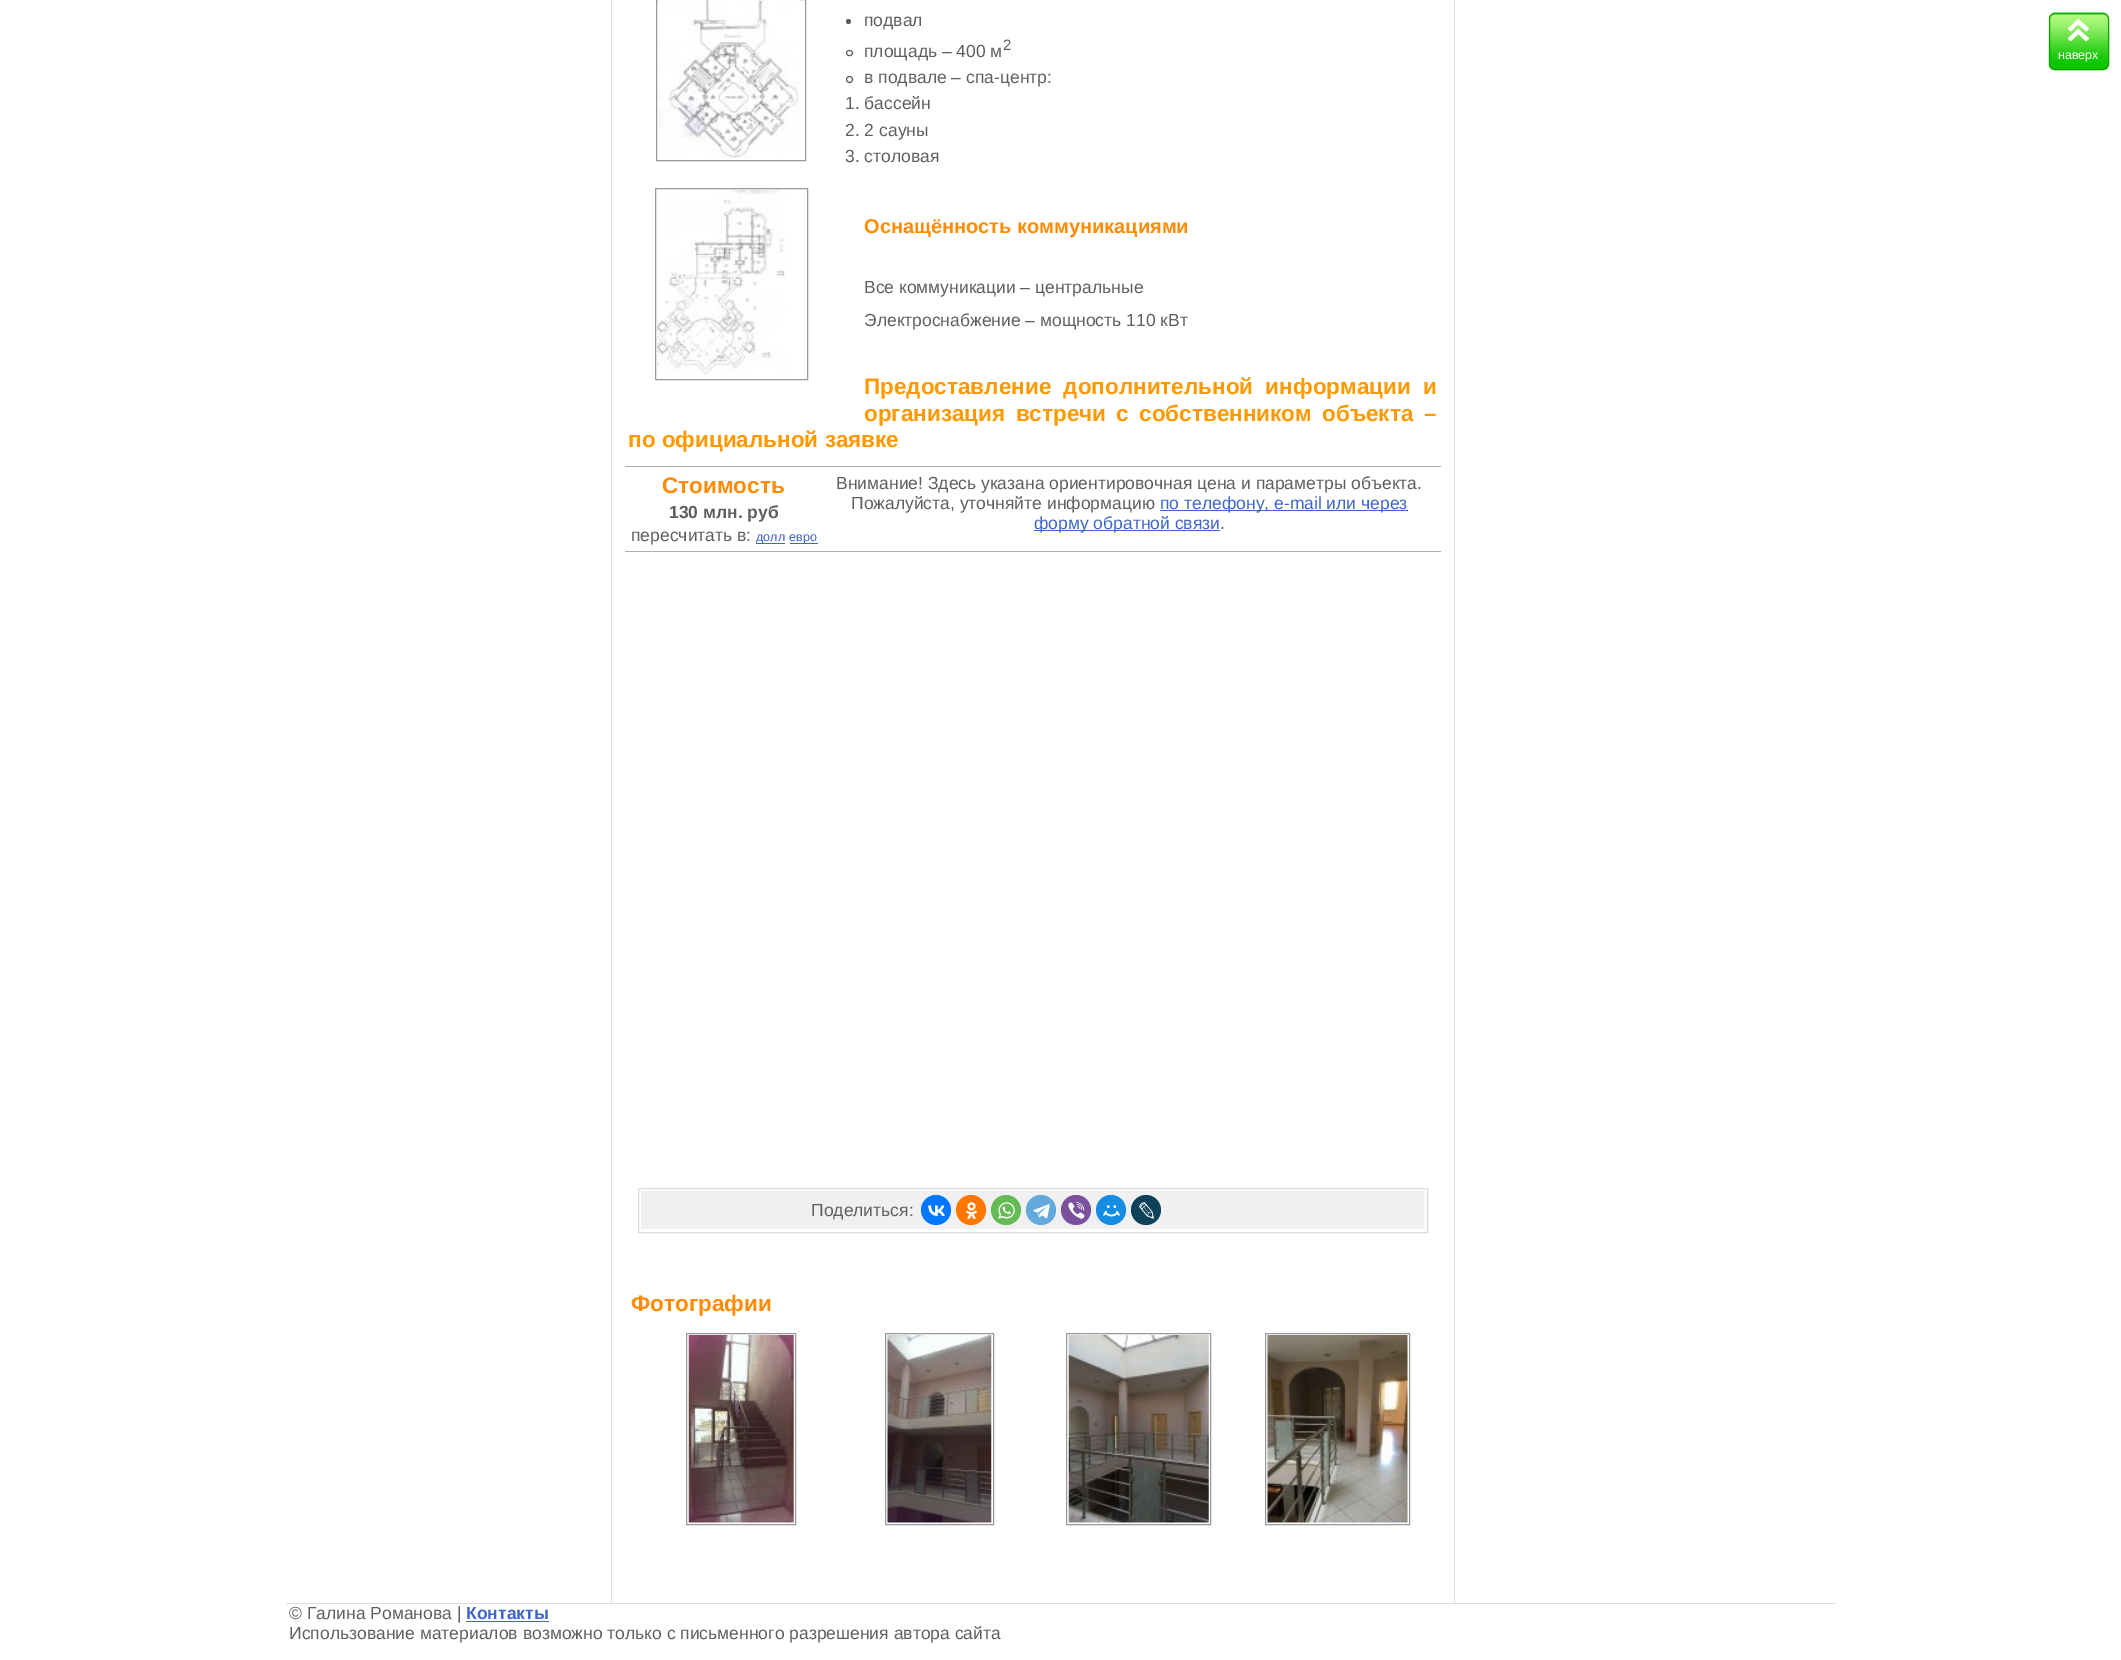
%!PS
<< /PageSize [2121 1660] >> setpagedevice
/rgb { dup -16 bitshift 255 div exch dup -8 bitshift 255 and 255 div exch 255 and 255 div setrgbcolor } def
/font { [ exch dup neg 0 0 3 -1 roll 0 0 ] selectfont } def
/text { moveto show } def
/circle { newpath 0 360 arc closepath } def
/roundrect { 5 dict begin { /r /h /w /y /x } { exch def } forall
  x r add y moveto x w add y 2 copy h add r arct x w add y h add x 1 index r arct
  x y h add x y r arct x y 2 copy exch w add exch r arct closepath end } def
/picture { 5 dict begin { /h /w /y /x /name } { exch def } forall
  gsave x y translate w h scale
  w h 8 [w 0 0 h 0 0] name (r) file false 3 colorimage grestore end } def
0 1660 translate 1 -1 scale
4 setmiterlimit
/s1 { /LiberationSans-Regular 17.5 font 16#5F5F5F rgb } def
/s2 { /LiberationSans-Regular 15 font 16#5F5F5F rgb } def
/s3 { /LiberationSans-Bold 20 font 16#FF8C04 rgb } def
/s4 { /LiberationSans-Bold 22.5 font 16#FF9900 rgb } def
/s5 { /LiberationSans-Bold 22.5 font 16#FF8C04 rgb } def
/s6 { /LiberationSans-Bold 17.5 font 16#5F5F5F rgb } def
/s7 { /LiberationSans-Regular 12.5 font 16#3E66C6 rgb } def
/s8 { /LiberationSans-Regular 17.5 font 16#3E66C6 rgb } def
/s9 { /LiberationSans-Bold 17.5 font 16#3E66C6 rgb } def
/s10 { /LiberationSans-Regular 12.5 font 16#FFFFFF rgb } def
16#FFFFFF rgb
0 0 2121 1660 rectfill
16#DDDDDD rgb
1454 0 1 1603 rectfill
611 0 1 1603 rectfill
16#999999 rgb
656.5 -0.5 149 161 rectstroke
(pic1.raw) 659 0 140 159 picture
655.5 188.5 152 191 rectstroke
(pic2.raw) 657 190 129 185 picture
16#5F5F5F rgb
848.5 21.5 2.5 circle fill
s1
(подвал) 864 26 text
846.5 50.5 6 5 2.5 roundrect stroke
(площадь – 400 м) 864 57 text
s2
(2) 1003 50 text
849.5 79.5 3 circle stroke
s1
(в подвале – спа-центр:) 864 83 text
(1. бассейн) 845 109 text
(2. 2 сауны) 845 136 text
(3. столовая) 845 162 text
s3
(Оснащённость коммуникациями) 864 233 text
s1
(Все коммуникации – центральные) 864 293 text
(Электроснабжение – мощность 110 кВт) 864 326 text
/LiberationSans-Bold 22.5 font
16#FF9900 rgb
864 394 moveto 6 0 32 (Предоставление дополнительной информации и) widthshow
864 421 moveto 4 0 32 (организация встречи с собственником объекта –) widthshow
(по официальной заявке) 628 447 text
16#AEAEAE rgb
625 466 816 1 rectfill
s5
(Стоимость) 662 493 text
s6
(130 млн. руб) 669 518 text
s1
(пересчитать в:) 631 541 text
16#3E66C6 rgb
756 543 29 1 rectfill
s7
(долл) 756 541 text
790 543 28 1 rectfill
(евро) 789 541 text
s1
(Внимание! Здесь указана ориентировочная цена и параметры объекта.) 836 489 text
(Пожалуйста, уточняйте информацию) 851 509 text
16#3E66C6 rgb
1160 510 248 1 rectfill
(по телефону, e-mail или через) 1160 509 text
1034 530 186 1 rectfill
(форму обратной связи) 1034 529 text
s1
(.) 1220 529 text
16#AEAEAE rgb
625 551 816 1 rectfill
16#DDDDDD rgb
638.5 1188.5 789 44 rectstroke
16#F0F0F0 rgb
641 1191 783 38 rectfill
s1
(Поделиться:) 811 1216 text
16#0077FF rgb
936 1210 15 circle fill
(pic3.raw) 928 1205 17 11 picture
16#FF7700 rgb
971 1210 15 circle fill
(pic4.raw) 966 1202 12 17 picture
16#65BC54 rgb
1006 1210 15 circle fill
(pic5.raw) 998 1202 17 17 picture
16#64A9DC rgb
1041 1210 15 circle fill
(pic6.raw) 1033 1204 17 15 picture
16#7B519D rgb
1076 1210 15 circle fill
(pic7.raw) 1068 1202 17 17 picture
16#168DE2 rgb
1111 1210 15 circle fill
(pic8.raw) 1103 1205 17 12 picture
16#0D425A rgb
1146 1210 15 circle fill
(pic9.raw) 1139 1202 15 17 picture
s5
(Фотографии) 631 1311 text
16#999999 rgb
686.5 1333.5 109 191 rectstroke
(pic10.raw) 688 1335 106 188 picture
885.5 1333.5 108 191 rectstroke
(pic11.raw) 887 1335 105 188 picture
1066.5 1333.5 144 191 rectstroke
(pic12.raw) 1068 1335 141 188 picture
1265.5 1333.5 144 191 rectstroke
(pic13.raw) 1267 1335 141 188 picture
16#DDDDDD rgb
286 1603 1550 1 rectfill
s1
(© Галина Романова |) 289 1619 text
s9
(Контакты) 466 1619 text
466 1621 83 1 rectfill
s1
(Использование материалов возможно только с письменного разрешения автора сайта) 289 1639 text
(pic14.raw) 2048 12 61 59 picture
16#0DA400 rgb
2049.5 13.5 59 56 5.5 roundrect stroke
(pic15.raw) 2068 19 22 23 picture
s10
(наверх) 2058 59 text
showpage
